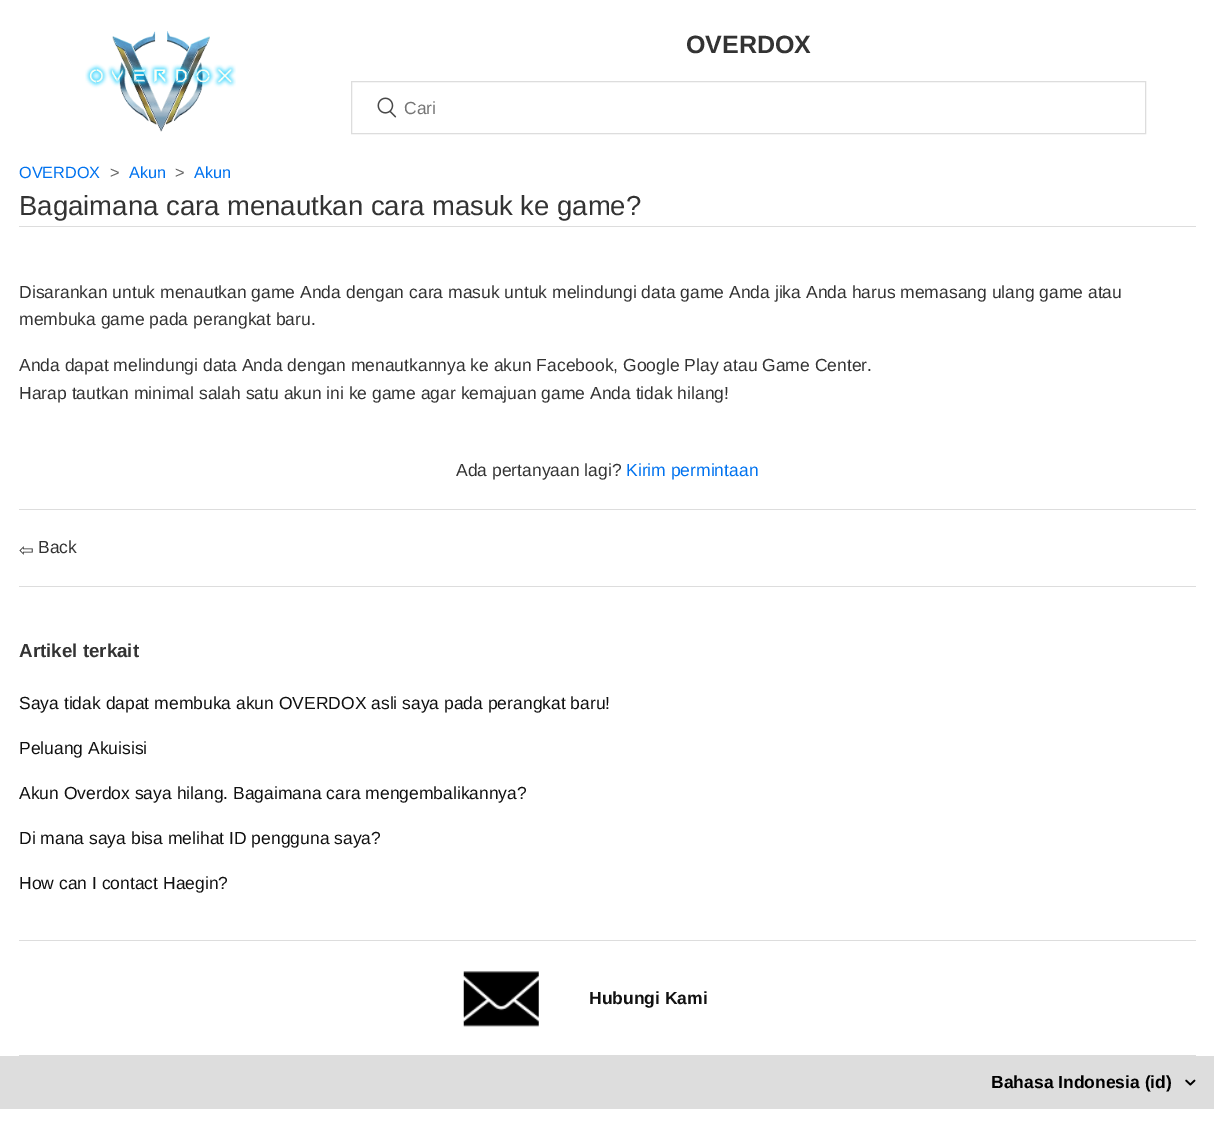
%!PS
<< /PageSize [1214 1126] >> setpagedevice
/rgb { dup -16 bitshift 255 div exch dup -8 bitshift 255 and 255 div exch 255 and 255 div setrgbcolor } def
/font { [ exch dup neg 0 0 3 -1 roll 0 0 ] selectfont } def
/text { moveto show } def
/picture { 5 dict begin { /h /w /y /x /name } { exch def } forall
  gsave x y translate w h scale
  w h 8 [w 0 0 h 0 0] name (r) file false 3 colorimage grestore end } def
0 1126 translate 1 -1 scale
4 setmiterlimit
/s1 { /LiberationSans-Bold 25 font 16#333333 rgb } def
/s2 { /LiberationSans-Regular 17.5 font 16#757575 rgb } def
/s3 { /LiberationSans-Regular 16.25 font 16#0072EF rgb } def
/s4 { /LiberationSans-Regular 16.25 font 16#666666 rgb } def
/s5 { /LiberationSans-Regular 27.5 font 16#333333 rgb } def
/s6 { /LiberationSans-Regular 17.5 font 16#333333 rgb } def
/s7 { /LiberationSans-Regular 17.5 font 16#0072EF rgb } def
/s8 { /DejaVuSans-Regular 17.5 font 16#333333 rgb } def
/s9 { /LiberationSans-Bold 18.75 font 16#333333 rgb } def
/s10 { /LiberationSans-Regular 17.5 font 16#111111 rgb } def
/s11 { /LiberationSans-Bold 17.5 font 16#111111 rgb } def
/s12 { /LiberationSans-Bold 17.5 font 16#000000 rgb } def
16#FFFFFF rgb
0 0 1214 1126 rectfill
(pic1.raw) 85 31 151 101 picture
s1
(OVERDOX) 686 53 text
16#DDDDDD rgb
351.5 81.5 794 52 rectstroke
(pic2.raw) 377 97 20 21 picture
s2
(Cari) 404 114 text
s3
(OVERDOX) 19 178 text
s4
(>) 110 178 text
s3
(Akun) 129 178 text
s4
(>) 175 178 text
s3
(Akun) 194 178 text
16#DDDDDD rgb
19 226 1177 1 rectfill
s5
(Bagaimana cara menautkan cara masuk ke game?) 19 215 text
s6
(Disarankan untuk menautkan game Anda dengan cara masuk untuk melindungi data game Anda jika Anda harus memasang ulang game atau) 19 298 text
(membuka game pada perangkat baru.) 19 325 text
(Anda dapat melindungi data Anda dengan menautkannya ke akun Facebook, Google Play atau Game Center.) 19 371 text
(Harap tautkan minimal salah satu akun ini ke game agar kemajuan game Anda tidak hilang!) 19 399 text
(Ada pertanyaan lagi?) 456 476 text
s7
(Kirim permintaan) 626 476 text
16#DDDDDD rgb
19 509 1177 1 rectfill
s8
(⇦) 19 556 text
s6
(Back) 38 553 text
16#DDDDDD rgb
19 586 1177 1 rectfill
s9
(Artikel terkait) 19 657 text
s10
(Saya tidak dapat membuka akun OVERDOX asli saya pada perangkat baru!) 19 709 text
(Peluang Akuisisi) 19 754 text
(Akun Overdox saya hilang. Bagaimana cara mengembalikannya?) 19 799 text
(Di mana saya bisa melihat ID pengguna saya?) 19 844 text
(How can I contact Haegin?) 19 889 text
16#DDDDDD rgb
19 940 1177 1 rectfill
19 1055 1177 1 rectfill
(pic3.raw) 463 971 76 56 picture
s11
(Hubungi Kami) 589 1004 text
16#DDDDDD rgb
0 1056 1214 53 rectfill
s12
(Bahasa Indonesia \(id\)) 991 1088 text
(pic4.raw) 1185 1079 11 7 picture
showpage
